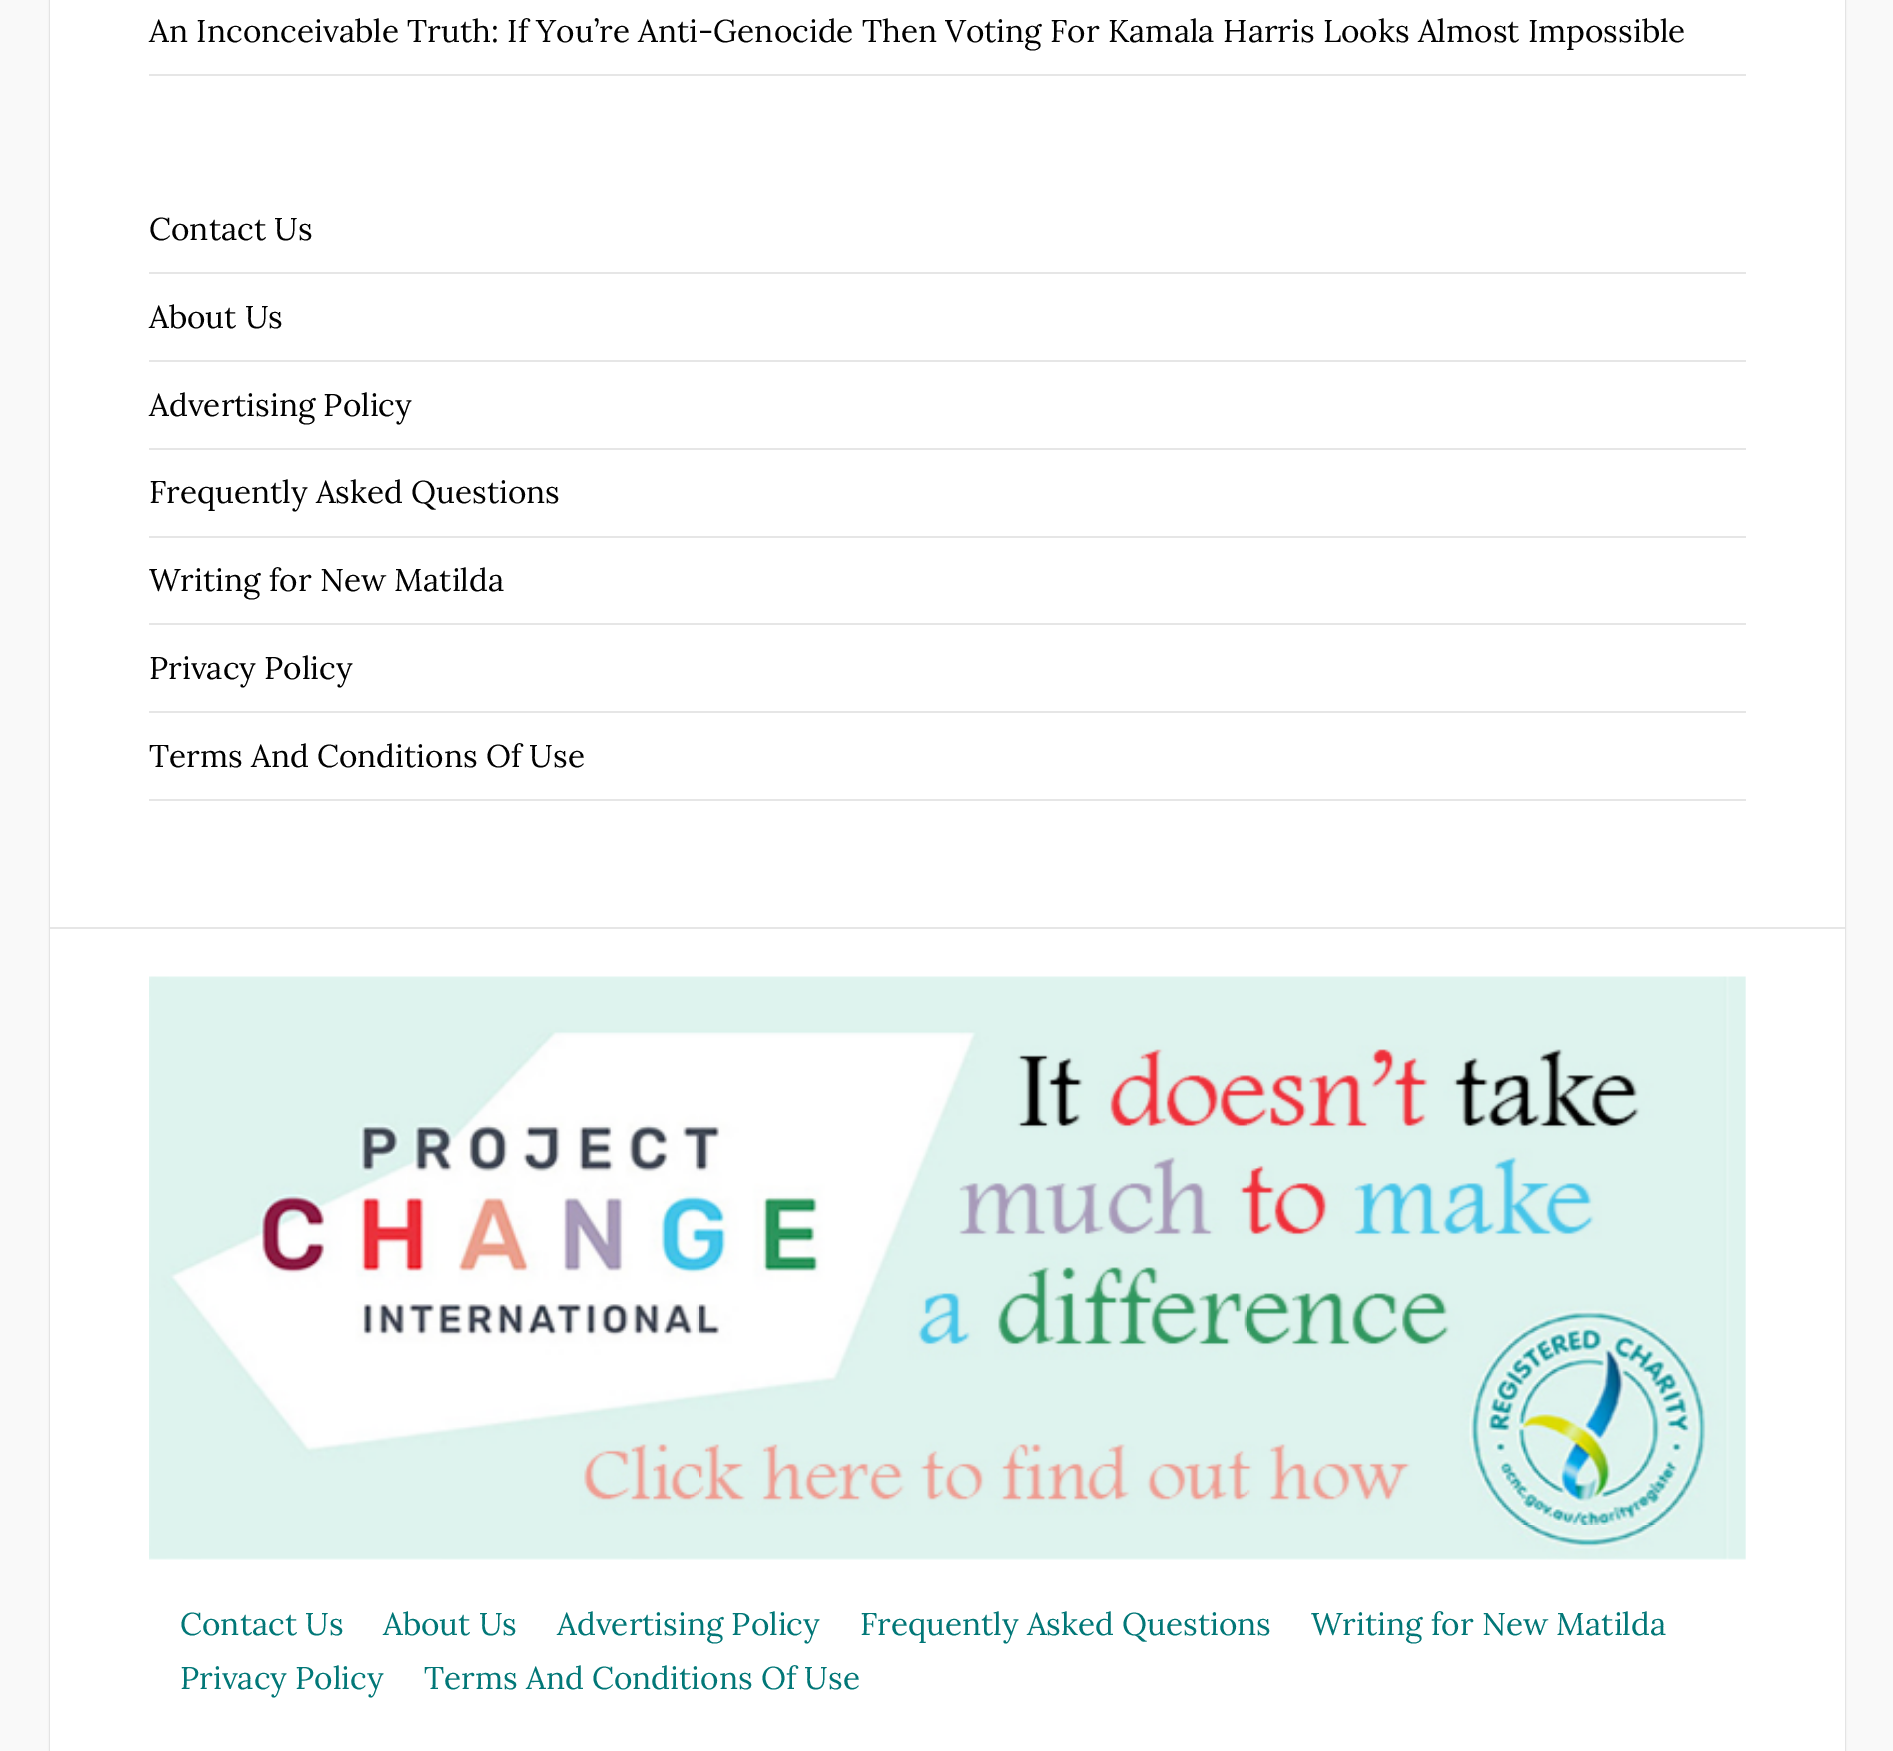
%!PS
<< /PageSize [1893 1751] /PageUsesTransparency true >> setpagedevice
/rgb { dup -16 bitshift 255 div exch dup -8 bitshift 255 and 255 div exch 255 and 255 div setrgbcolor } def
/font { [ exch dup neg 0 0 3 -1 roll 0 0 ] selectfont } def
/text { moveto show } def
/alpha { dup .setfillconstantalpha .setstrokeconstantalpha } def
/roundrect { 5 dict begin { /r /h /w /y /x } { exch def } forall
  x r add y moveto x w add y 2 copy h add r arct x w add y h add x 1 index r arct
  x y h add x y r arct x y 2 copy exch w add exch r arct closepath end } def
/shadow { 12 dict begin { /a /b /q /h /w /y /x } { exch def } forall gsave /was 0 def
  9 -2 -9 { dup b mul 4 div /e exch def 1 sub .425 mul 2.718 exch exp 1 add a .99 .min exch div /now exch def
    1 1 now sub 1 was sub div sub alpha /was now def
    w h .min e 2 mul add 0 gt { x e sub y e sub w e 2 mul add h e 2 mul add
      q e add b .6 mul add w h .min 2 div e add .min 0 .max roundrect fill } if } for grestore end } def
/picture { 5 dict begin { /h /w /y /x /name } { exch def } forall
  gsave x y translate w h scale
  w h 8 [w 0 0 h 0 0] name (r) file false 3 colorimage grestore end } def
0 .pushpdf14devicefilter
0 1751 translate 1 -1 scale
4 setmiterlimit
/s1 { /Lora-Regular 31.5 font 16#010101 rgb } def
/s2 { /Lora-Regular 31.5 font 16#017777 rgb } def
16#F9F9F9 rgb
0 0 1893 1751 rectfill
16#000000 rgb
50 -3 1795 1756 0 1 0.25 shadow
16#FFFFFF rgb
50 0 1795 927 rectfill
16#E6E6E6 rgb
149 74 1597 2 rectfill
s1
(An Inconceivable Truth: If You’re Anti-Genocide Then Voting For Kamala Harris Looks Almost Impossible) 149 42 text
16#E6E6E6 rgb
149 272 1597 2 rectfill
s1
(Contact Us) 149 240 text
16#E6E6E6 rgb
149 360 1597 2 rectfill
s1
(About Us) 149 328 text
16#E6E6E6 rgb
149 448 1597 2 rectfill
s1
(Advertising Policy) 149 416 text
16#E6E6E6 rgb
149 536 1597 2 rectfill
s1
(Frequently Asked Questions) 149 503 text
16#E6E6E6 rgb
149 623 1597 2 rectfill
s1
(Writing for New Matilda) 149 591 text
16#E6E6E6 rgb
149 711 1597 2 rectfill
s1
(Privacy Policy) 149 679 text
16#E6E6E6 rgb
149 799 1597 2 rectfill
s1
(Terms And Conditions Of Use) 149 767 text
16#E6E6E6 rgb
50 927 1795 2 rectfill
16#FFFFFF rgb
50 929 1795 822 rectfill
(pic1.raw) 149 976 1597 584 picture
s2
(Contact Us) 180 1635 text
(About Us) 383 1635 text
(Advertising Policy) 557 1635 text
(Frequently Asked Questions) 860 1635 text
(Writing for New Matilda) 1311 1635 text
(Privacy Policy) 180 1689 text
(Terms And Conditions Of Use) 424 1689 text
.poppdf14devicefilter showpage
